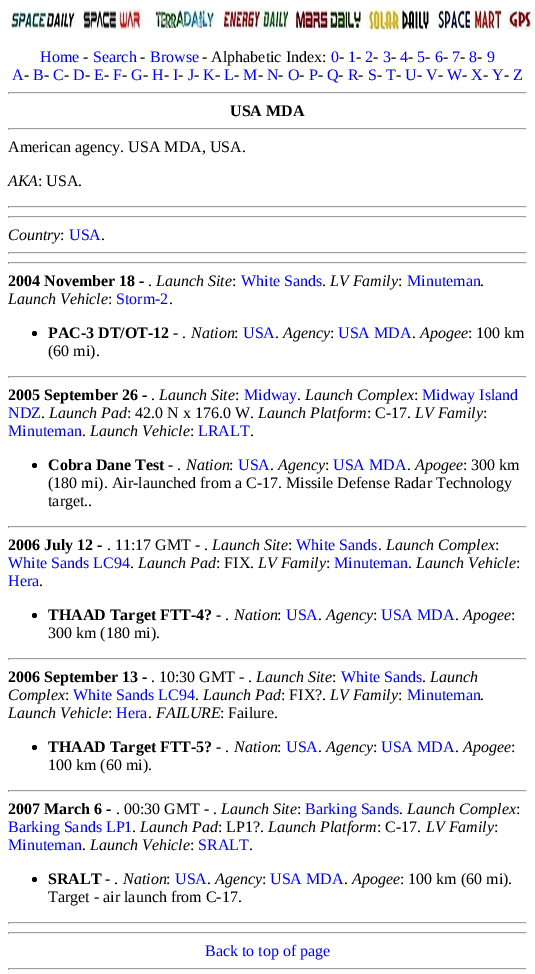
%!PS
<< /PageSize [535 974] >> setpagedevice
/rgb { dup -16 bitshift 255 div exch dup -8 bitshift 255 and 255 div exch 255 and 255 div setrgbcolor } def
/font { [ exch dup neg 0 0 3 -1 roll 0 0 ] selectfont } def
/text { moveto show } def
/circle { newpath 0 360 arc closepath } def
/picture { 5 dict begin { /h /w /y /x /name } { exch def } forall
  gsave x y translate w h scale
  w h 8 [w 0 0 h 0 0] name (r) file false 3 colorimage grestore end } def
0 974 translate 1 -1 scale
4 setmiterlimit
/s1 { /LiberationSerif-Regular 16 font 16#0000EE rgb } def
/s2 { /LiberationSerif-Regular 16 font 16#000000 rgb } def
/s3 { /LiberationSerif-Bold 16 font 16#000000 rgb } def
/s4 { /LiberationSerif-Italic 16 font 16#000000 rgb } def
16#FFFFFF rgb
0 0 535 974 rectfill
(pic1.raw) 8 8 527 22 picture
s1
(Home) 40 62 text
s2
(-) 83 62 text
s1
(Search) 93 62 text
s2
(-) 140 62 text
s1
(Browse) 150 62 text
s2
(- Alphabetic Index:) 202 62 text
s1
(0) 331 62 text
s2
(-) 339 62 text
s1
(1) 348 62 text
s2
(-) 356 62 text
s1
(2) 365 62 text
s2
(-) 373 62 text
s1
(3) 383 62 text
s2
(-) 391 62 text
s1
(4) 400 62 text
s2
(-) 408 62 text
s1
(5) 417 62 text
s2
(-) 425 62 text
s1
(6) 435 62 text
s2
(-) 443 62 text
s1
(7) 452 62 text
s2
(-) 460 62 text
s1
(8) 469 62 text
s2
(-) 477 62 text
s1
(9) 487 62 text
(A) 12 80 text
s2
(-) 24 80 text
s1
(B) 33 80 text
s2
(-) 44 80 text
s1
(C) 53 80 text
s2
(-) 64 80 text
s1
(D) 73 80 text
s2
(-) 85 80 text
s1
(E) 94 80 text
s2
(-) 104 80 text
s1
(F) 113 80 text
s2
(-) 122 80 text
s1
(G) 131 80 text
s2
(-) 143 80 text
s1
(H) 152 80 text
s2
(-) 164 80 text
s1
(I) 173 80 text
s2
(-) 178 80 text
s1
(J) 188 80 text
s2
(-) 194 80 text
s1
(K) 203 80 text
s2
(-) 215 80 text
s1
(L) 224 80 text
s2
(-) 234 80 text
s1
(M) 243 80 text
s2
(-) 258 80 text
s1
(N) 267 80 text
s2
(-) 278 80 text
s1
(O) 288 80 text
s2
(-) 299 80 text
s1
(P) 309 80 text
s2
(-) 318 80 text
s1
(Q) 327 80 text
s2
(-) 338 80 text
s1
(R) 348 80 text
s2
(-) 358 80 text
s1
(S) 368 80 text
s2
(-) 377 80 text
s1
(T) 386 80 text
s2
(-) 396 80 text
s1
(U) 405 80 text
s2
(-) 417 80 text
s1
(V) 426 80 text
s2
(-) 438 80 text
s1
(W) 447 80 text
s2
(-) 462 80 text
s1
(X) 471 80 text
s2
(-) 483 80 text
s1
(Y) 492 80 text
s2
(-) 504 80 text
s1
(Z) 513 80 text
16#9F9F9F rgb
8 92 519 1 rectfill
16#EEEEEE rgb
526 92 1 2 rectfill
8 93 519 1 rectfill
16#9F9F9F rgb
8 92 1 2 rectfill
s3
(USA MDA) 230 116 text
16#9F9F9F rgb
8 128 519 1 rectfill
16#EEEEEE rgb
526 128 1 2 rectfill
8 129 519 1 rectfill
16#9F9F9F rgb
8 128 1 2 rectfill
s2
(American agency. USA MDA, USA.) 8 152 text
s4
(AKA) 8 186 text
s2
(: USA.) 38 186 text
16#9F9F9F rgb
8 206 519 1 rectfill
16#EEEEEE rgb
526 206 1 2 rectfill
8 207 519 1 rectfill
16#9F9F9F rgb
8 206 1 2 rectfill
8 216 519 1 rectfill
16#EEEEEE rgb
526 216 1 2 rectfill
8 217 519 1 rectfill
16#9F9F9F rgb
8 216 1 2 rectfill
s4
(Country) 8 240 text
s2
(:) 60 240 text
s1
(USA) 69 240 text
s2
(.) 101 240 text
16#9F9F9F rgb
8 252 519 1 rectfill
16#EEEEEE rgb
526 252 1 2 rectfill
8 253 519 1 rectfill
16#9F9F9F rgb
8 252 1 2 rectfill
8 262 519 1 rectfill
16#EEEEEE rgb
526 262 1 2 rectfill
8 263 519 1 rectfill
16#9F9F9F rgb
8 262 1 2 rectfill
s3
(2004 November 18 -) 8 286 text
s2
(.) 148 286 text
s4
(Launch Site) 156 286 text
s2
(:) 232 286 text
s1
(White Sands) 241 286 text
s2
(.) 322 286 text
s4
(LV Family) 330 286 text
s2
(:) 398 286 text
s1
(Minuteman) 407 286 text
s2
(.) 480 286 text
s4
(Launch Vehicle) 8 304 text
s2
(:) 108 304 text
s1
(Storm-2) 116 304 text
s2
(.) 169 304 text
34.5 333.5 2.5 circle fill
s3
(PAC-3 DT/OT-12) 48 338 text
s2
(- .) 173 338 text
s4
(Nation) 191 338 text
s2
(:) 234 338 text
s1
(USA) 243 338 text
s2
(.) 275 338 text
s4
(Agency) 283 338 text
s2
(:) 330 338 text
s1
(USA MDA) 338 338 text
s2
(.) 412 338 text
s4
(Apogee) 420 338 text
s2
(: 100 km) 468 338 text
(\(60 mi\).) 48 356 text
16#9F9F9F rgb
8 376 519 1 rectfill
16#EEEEEE rgb
526 376 1 2 rectfill
8 377 519 1 rectfill
16#9F9F9F rgb
8 376 1 2 rectfill
s3
(2005 September 26 -) 8 400 text
s2
(.) 151 400 text
s4
(Launch Site) 159 400 text
s2
(:) 235 400 text
s1
(Midway) 244 400 text
s2
(.) 297 400 text
s4
(Launch Complex) 305 400 text
s2
(:) 414 400 text
s1
(Midway Island) 422 400 text
(NDZ) 8 418 text
s2
(.) 41 418 text
s4
(Launch Pad) 49 418 text
s2
(: 42.0 N x 176.0 W.) 127 418 text
s4
(Launch Platform) 258 418 text
s2
(: C-17.) 367 418 text
s4
(LV Family) 415 418 text
s2
(:) 483 418 text
s1
(Minuteman) 8 436 text
s2
(.) 82 436 text
s4
(Launch Vehicle) 90 436 text
s2
(:) 190 436 text
s1
(LRALT) 198 436 text
s2
(.) 250 436 text
34.5 465.5 2.5 circle fill
s3
(Cobra Dane Test) 48 470 text
s2
(- .) 168 470 text
s4
(Nation) 186 470 text
s2
(:) 229 470 text
s1
(USA) 238 470 text
s2
(.) 270 470 text
s4
(Agency) 278 470 text
s2
(:) 325 470 text
s1
(USA MDA) 333 470 text
s2
(.) 407 470 text
s4
(Apogee) 415 470 text
s2
(: 300 km) 463 470 text
(\(180 mi\). Air-launched from a C-17. Missile Defense Radar Technology) 48 488 text
(target..) 48 506 text
16#9F9F9F rgb
8 526 519 1 rectfill
16#EEEEEE rgb
526 526 1 2 rectfill
8 527 519 1 rectfill
16#9F9F9F rgb
8 526 1 2 rectfill
s3
(2006 July 12 -) 8 550 text
s2
(. 11:17 GMT - .) 107 550 text
s4
(Launch Site) 212 550 text
s2
(:) 288 550 text
s1
(White Sands) 296 550 text
s2
(.) 378 550 text
s4
(Launch Complex) 386 550 text
s2
(:) 495 550 text
s1
(White Sands LC94) 8 568 text
s2
(.) 130 568 text
s4
(Launch Pad) 138 568 text
s2
(: FIX.) 216 568 text
s4
(LV Family) 258 568 text
s2
(:) 326 568 text
s1
(Minuteman) 334 568 text
s2
(.) 408 568 text
s4
(Launch Vehicle) 416 568 text
s2
(:) 516 568 text
s1
(Hera) 8 586 text
s2
(.) 39 586 text
34.5 615.5 2.5 circle fill
s3
(THAAD Target FTT-4?) 48 620 text
s2
(- .) 216 620 text
s4
(Nation) 234 620 text
s2
(:) 277 620 text
s1
(USA) 286 620 text
s2
(.) 318 620 text
s4
(Agency) 326 620 text
s2
(:) 373 620 text
s1
(USA MDA) 381 620 text
s2
(.) 455 620 text
s4
(Apogee) 463 620 text
s2
(:) 511 620 text
(300 km \(180 mi\).) 48 638 text
16#9F9F9F rgb
8 658 519 1 rectfill
16#EEEEEE rgb
526 658 1 2 rectfill
8 659 519 1 rectfill
16#9F9F9F rgb
8 658 1 2 rectfill
s3
(2006 September 13 -) 8 682 text
s2
(. 10:30 GMT - .) 151 682 text
s4
(Launch Site) 256 682 text
s2
(:) 332 682 text
s1
(White Sands) 341 682 text
s2
(.) 422 682 text
s4
(Launch) 430 682 text
(Complex) 8 700 text
s2
(:) 65 700 text
s1
(White Sands LC94) 73 700 text
s2
(.) 195 700 text
s4
(Launch Pad) 203 700 text
s2
(: FIX?.) 281 700 text
s4
(LV Family) 330 700 text
s2
(:) 398 700 text
s1
(Minuteman) 407 700 text
s2
(.) 480 700 text
s4
(Launch Vehicle) 8 718 text
s2
(:) 108 718 text
s1
(Hera) 116 718 text
s2
(.) 148 718 text
s4
(FAILURE) 156 718 text
s2
(: Failure.) 220 718 text
34.5 747.5 2.5 circle fill
s3
(THAAD Target FTT-5?) 48 752 text
s2
(- .) 216 752 text
s4
(Nation) 234 752 text
s2
(:) 277 752 text
s1
(USA) 286 752 text
s2
(.) 318 752 text
s4
(Agency) 326 752 text
s2
(:) 373 752 text
s1
(USA MDA) 381 752 text
s2
(.) 455 752 text
s4
(Apogee) 463 752 text
s2
(:) 511 752 text
(100 km \(60 mi\).) 48 770 text
16#9F9F9F rgb
8 790 519 1 rectfill
16#EEEEEE rgb
526 790 1 2 rectfill
8 791 519 1 rectfill
16#9F9F9F rgb
8 790 1 2 rectfill
s3
(2007 March 6 -) 8 814 text
s2
(. 00:30 GMT - .) 116 814 text
s4
(Launch Site) 221 814 text
s2
(:) 297 814 text
s1
(Barking Sands) 305 814 text
s2
(.) 399 814 text
s4
(Launch Complex) 407 814 text
s2
(:) 516 814 text
s1
(Barking Sands LP1) 8 832 text
s2
(.) 132 832 text
s4
(Launch Pad) 140 832 text
s2
(: LP1?.) 218 832 text
s4
(Launch Platform) 268 832 text
s2
(: C-17.) 377 832 text
s4
(LV Family) 426 832 text
s2
(:) 494 832 text
s1
(Minuteman) 8 850 text
s2
(.) 82 850 text
s4
(Launch Vehicle) 90 850 text
s2
(:) 190 850 text
s1
(SRALT) 198 850 text
s2
(.) 249 850 text
34.5 879.5 2.5 circle fill
s3
(SRALT) 48 884 text
s2
(- .) 105 884 text
s4
(Nation) 123 884 text
s2
(:) 166 884 text
s1
(USA) 175 884 text
s2
(.) 207 884 text
s4
(Agency) 215 884 text
s2
(:) 262 884 text
s1
(USA MDA) 270 884 text
s2
(.) 344 884 text
s4
(Apogee) 352 884 text
s2
(: 100 km \(60 mi\).) 400 884 text
(Target - air launch from C-17.) 48 902 text
16#9F9F9F rgb
8 922 519 1 rectfill
16#EEEEEE rgb
526 922 1 2 rectfill
8 923 519 1 rectfill
16#9F9F9F rgb
8 922 1 2 rectfill
8 932 519 1 rectfill
16#EEEEEE rgb
526 932 1 2 rectfill
8 933 519 1 rectfill
16#9F9F9F rgb
8 932 1 2 rectfill
s1
(Back to top of page) 205 956 text
16#9F9F9F rgb
8 968 519 1 rectfill
16#EEEEEE rgb
526 968 1 2 rectfill
8 969 519 1 rectfill
16#9F9F9F rgb
8 968 1 2 rectfill
showpage
